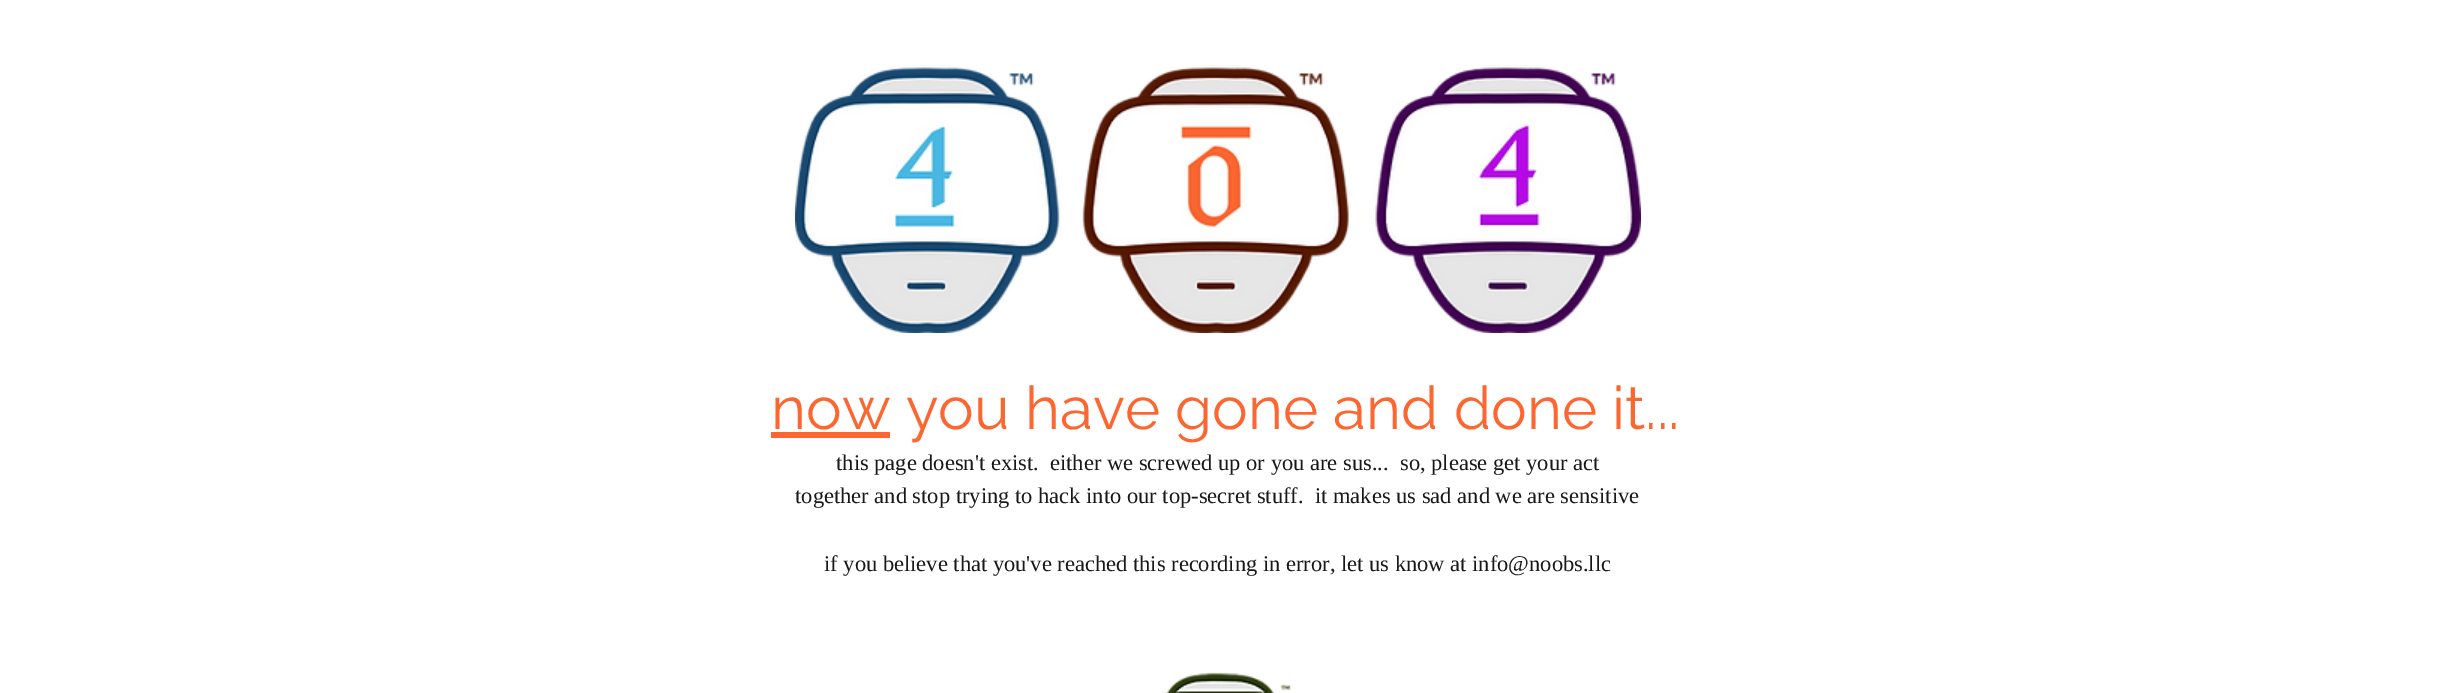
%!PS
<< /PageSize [2459 693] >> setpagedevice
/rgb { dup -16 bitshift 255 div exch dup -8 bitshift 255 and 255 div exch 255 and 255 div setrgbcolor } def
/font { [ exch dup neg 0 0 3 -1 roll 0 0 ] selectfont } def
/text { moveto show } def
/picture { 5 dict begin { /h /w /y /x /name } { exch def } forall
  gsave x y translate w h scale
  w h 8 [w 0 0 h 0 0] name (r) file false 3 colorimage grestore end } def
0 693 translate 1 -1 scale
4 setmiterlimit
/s1 { /Raleway-Regular 60 font 16#FC6630 rgb } def
/s2 { /LiberationSerif-Regular 22.5 font 16#181818 rgb } def
16#FFFFFF rgb
0 0 2459 693 rectfill
(pic1.raw) 795 65 846 268 picture
16#FC6630 rgb
771 432 119 6 rectfill
s1
(now you have gone and done it...) 771 429 text
s2
(this page doesn't exist.  either we screwed up or you are sus...  so, please get your act) 836 470 text
(together and stop trying to hack into our top-secret stuff.  it makes us sad and we are sensitive) 795 503 text
(if you believe that you've reached this recording in error, let us know at info@noobs.llc) 824 571 text
(pic2.raw) 1162 672 129 21 picture
showpage
